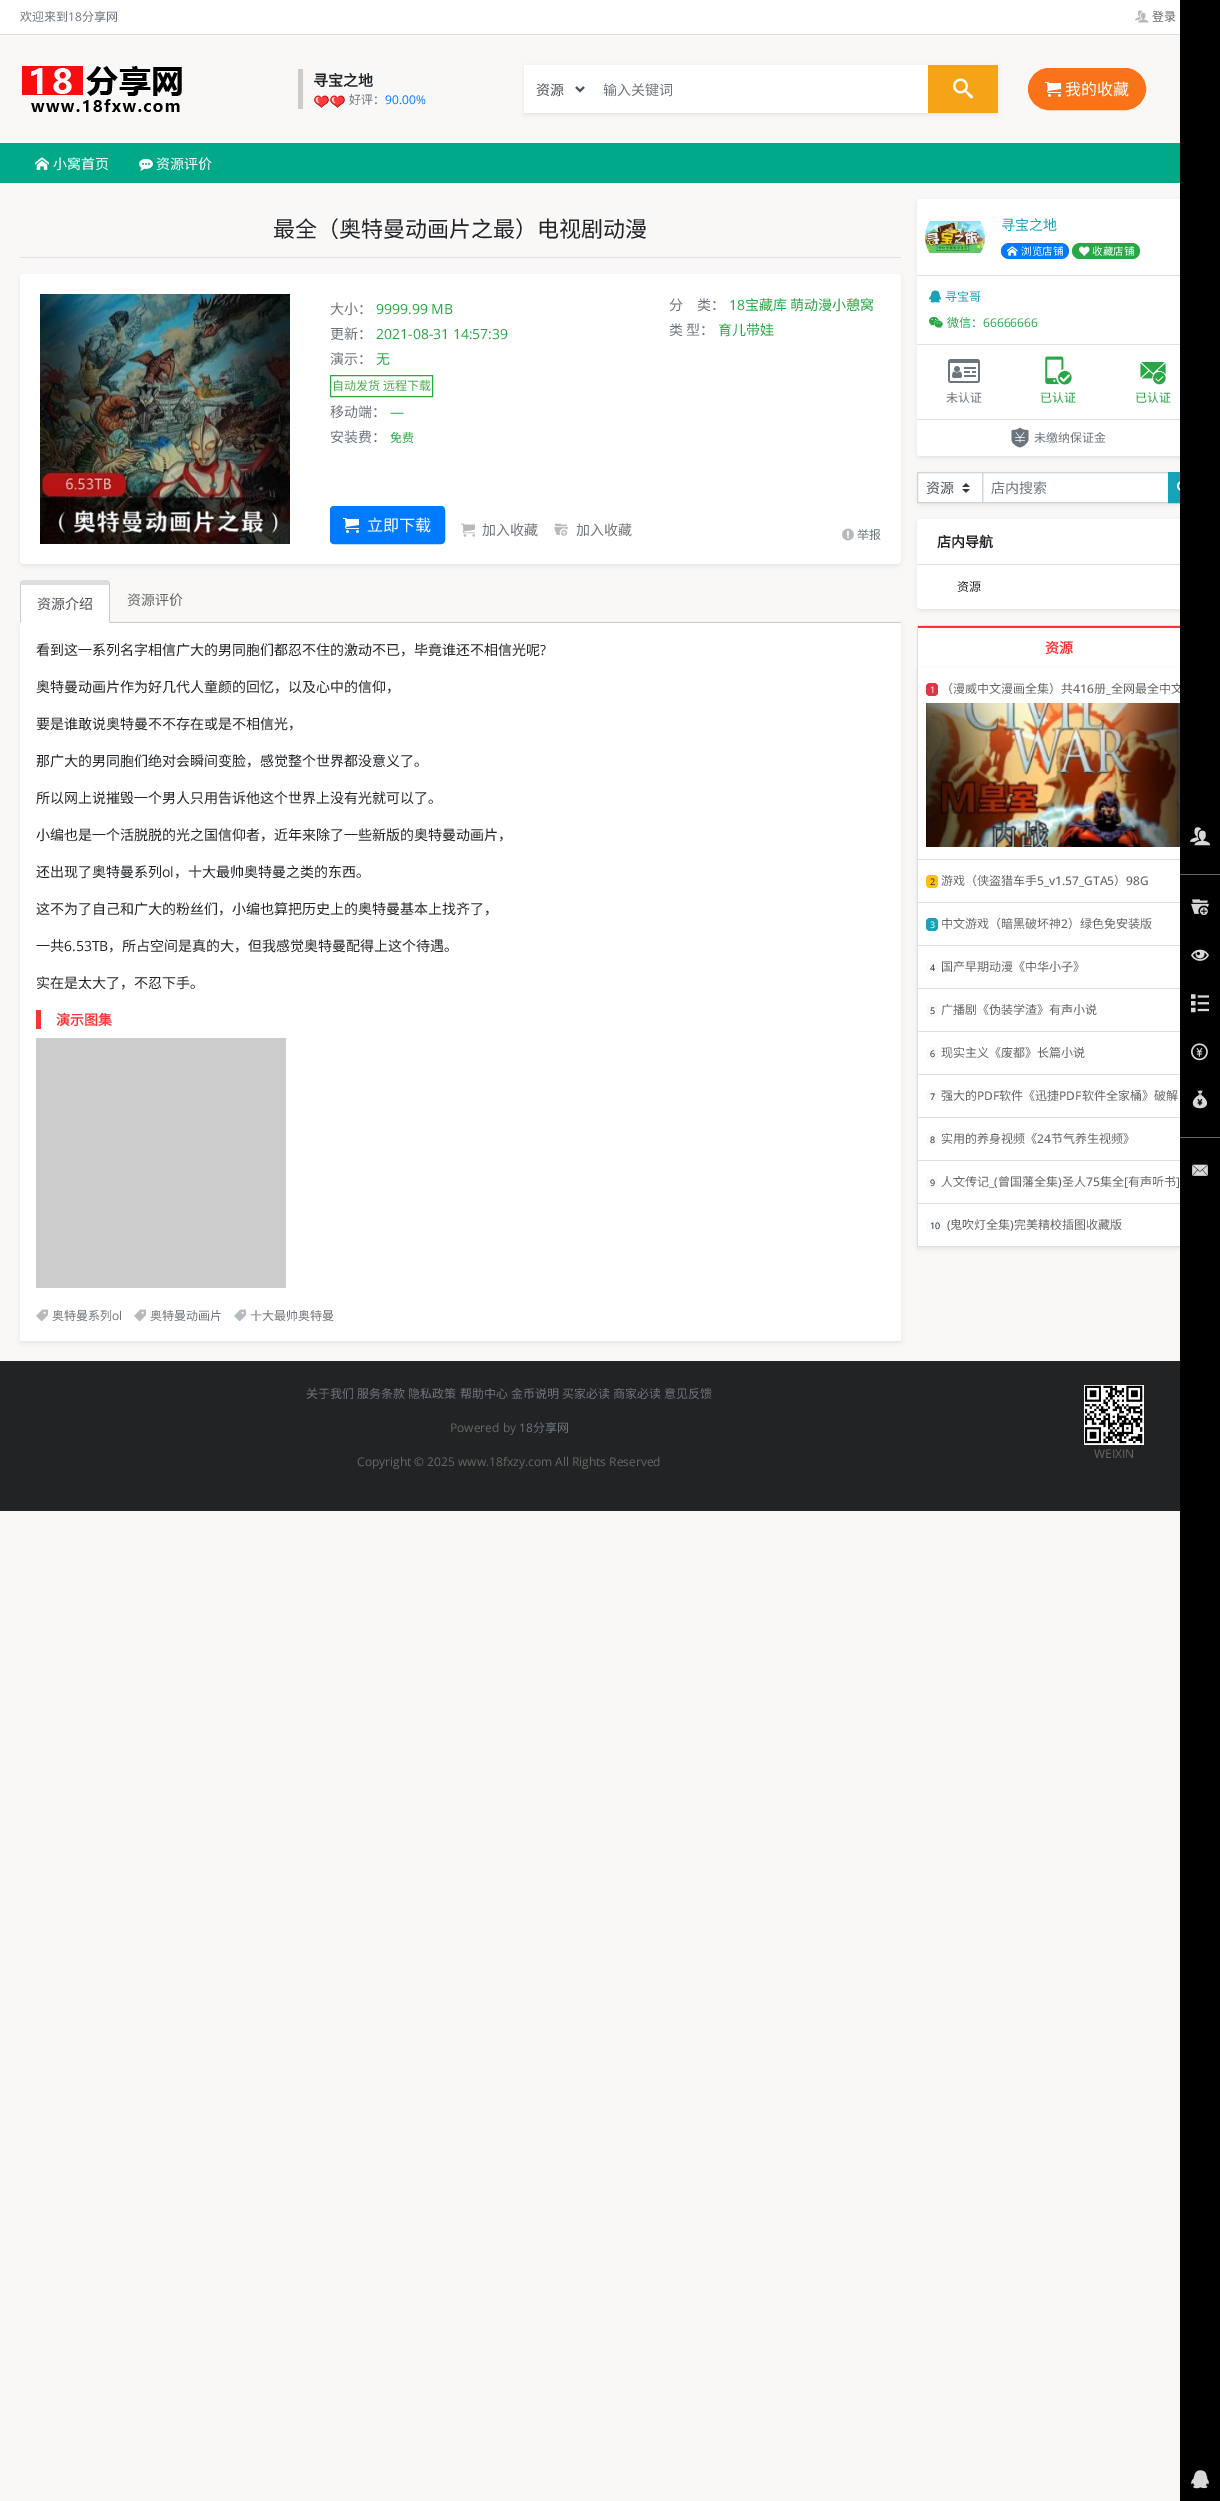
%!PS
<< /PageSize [1220 2501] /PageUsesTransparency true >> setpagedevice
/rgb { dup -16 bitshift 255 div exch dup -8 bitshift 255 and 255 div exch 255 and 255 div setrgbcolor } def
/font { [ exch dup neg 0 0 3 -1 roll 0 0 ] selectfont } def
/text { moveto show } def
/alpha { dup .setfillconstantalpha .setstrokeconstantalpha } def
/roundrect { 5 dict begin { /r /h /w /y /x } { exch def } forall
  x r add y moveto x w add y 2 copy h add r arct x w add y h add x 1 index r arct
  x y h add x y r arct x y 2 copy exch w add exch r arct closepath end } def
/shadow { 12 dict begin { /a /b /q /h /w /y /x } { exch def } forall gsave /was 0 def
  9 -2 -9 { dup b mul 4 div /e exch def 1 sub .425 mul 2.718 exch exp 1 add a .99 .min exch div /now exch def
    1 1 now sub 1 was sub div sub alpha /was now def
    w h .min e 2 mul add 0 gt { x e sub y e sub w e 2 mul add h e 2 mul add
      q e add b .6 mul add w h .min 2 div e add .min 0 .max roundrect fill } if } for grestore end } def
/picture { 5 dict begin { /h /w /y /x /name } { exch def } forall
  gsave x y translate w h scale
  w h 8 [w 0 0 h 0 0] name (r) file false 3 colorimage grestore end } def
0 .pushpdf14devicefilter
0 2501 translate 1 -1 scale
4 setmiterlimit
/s1 { /NotoSansCJKSC-Regular 12 font 16#6C757D rgb } def
/s2 { /OpenSans-Regular 12 font 16#6C757D rgb } def
/s3 { /NotoSansCJKSC-Regular 12 font 16#666666 rgb } def
/s4 { /NotoSansCJKSC-Bold 15 font 16#212529 rgb } def
/s5 { /OpenSans-Regular 12 font 16#007BFF rgb } def
/s6 { /NotoSansCJKSC-Regular 14 font 16#495057 rgb } def
/s7 { /NotoSansCJKSC-Regular 14 font 16#6C757D rgb } def
/s8 { /NotoSansCJKSC-Regular 16 font 16#FFFFFF rgb } def
/s9 { /NotoSansCJKSC-Regular 14 font 16#FFFFFF rgb } def
/s10 { /NotoSansCJKSC-Regular 22 font 16#212529 rgb } def
/s11 { /OpenSans-Regular 14 font 16#28A745 rgb } def
/s12 { /NotoSansCJKSC-Regular 14 font 16#28A745 rgb } def
/s13 { /NotoSansCJKSC-Regular 12 font 16#4CAE4C rgb } def
/s14 { /NotoSansCJKSC-Regular 12 font 16#28A745 rgb } def
/s15 { /NotoSansCJKSC-Regular 14 font 16#666666 rgb } def
/s16 { /NotoSansCJKSC-Regular 14 font 16#212529 rgb } def
/s17 { /OpenSans-Regular 14 font 16#212529 rgb } def
/s18 { /NotoSansCJKSC-Bold 14 font 16#FB3434 rgb } def
/s19 { /NotoSansCJKSC-Regular 14 font 16#17A2B8 rgb } def
/s20 { /NotoSansCJKSC-Regular 10.5 font 16#FFFFFF rgb } def
/s21 { /NotoSansCJKSC-Regular 12 font 16#17A2B8 rgb } def
/s22 { /OpenSans-Regular 12 font 16#28A745 rgb } def
/s23 { /NotoSansCJKSC-Bold 14 font 16#212529 rgb } def
/s24 { /NotoSansCJKSC-Regular 12 font 16#212529 rgb } def
/s25 { /OpenSans-Regular 9 font 16#FFFFFF rgb } def
/s26 { /OpenSans-Medium 12 font 16#666666 rgb } def
/s27 { /OpenSans-Regular 9 font 16#212529 rgb } def
/s28 { /OpenSans-Regular 12 font 16#666666 rgb } def
16#F9F8F7 rgb
0 0 1220 2501 rectfill
16#FFFFFF rgb
0 0 1180 34 rectfill
16#DDDDDD rgb
0 34 1180 1 rectfill
s1
(欢迎来到) 20 21 text
s2
(18) 68 21 text
s1
(分享网) 82 21 text
(pic1.raw) 1135 10 14 13 picture
s3
(登录) 1152 21 text
16#000000 rgb
917 201 283 257 4 2 0.07 shadow
16#FFFFFF rgb
917 199 283 257 4 roundrect fill
917 419 moveto 1200 419 lineto 1200 453 lineto 1200 454.5 1198.5 456 1197 456 curveto 920 456 lineto 918.5 456 917 454.5 917 453 curveto closepath fill
16#000000 rgb
917 474 283 31 4 2 0.07 shadow
16#FFFFFF rgb
983 473 185 29 rectfill
918 473 64 29 rectfill
(pic31.raw) 962 483 8 10 picture
16#CED4DA rgb
917.5 472.5 65 30 rectstroke
982.5 472.5 186 30 rectstroke
16#17A2B8 rgb
1169 473 11 29 rectfill
1168.5 472.5 31 30 rectstroke
16#000000 rgb
917 521 283 90 4 2 0.07 shadow
16#FFFFFF rgb
917 519 283 90 4 roundrect fill
920 519 moveto 1197 519 lineto 1198.5 519 1200 520.5 1200 522 curveto 1200 565 lineto 917 565 lineto 917 522 lineto 917 520.5 918.5 519 920 519 curveto closepath fill
16#DDDDDD rgb
917 625 263 1 rectfill
917 625 1 43 rectfill
16#FFFFFF rgb
918 628 262 40 rectfill
16#000000 rgb
917 670 283 579 0 2 0.07 shadow
16#FFFFFF rgb
918 668 262 191 rectfill
s3
(全网最全中文) 1111 693 text
16#000000 rgb
1180 0 40 2501 rectfill
(pic2.raw) 1190 827 21 19 picture
16#666666 rgb
1180 874 40 1 rectfill
(pic3.raw) 1191 899 18 17 picture
(pic4.raw) 1191 949 18 12 picture
(pic5.raw) 1191 994 18 19 picture
(pic6.raw) 1191 1043 17 18 picture
(pic7.raw) 1192 1090 16 19 picture
1180 1137 40 1 rectfill
(pic8.raw) 1192 1164 16 12 picture
(pic9.raw) 1191 2470 18 19 picture
(pic10.raw) 22 66 160 46 picture
16#CCCCCC rgb
298 69 5 40 rectfill
s4
(寻宝之地) 313 86 text
(pic11.raw) 314 95 31 13 picture
s1
(好评：) 349 104 text
s5
(90.00%) 385 104 text
16#000000 rgb
524 67 474 48 0 2 0.07 shadow
16#FFFFFF rgb
524 65 63 48 rectfill
16#495057 rgb
2 setlinewidth
576 87 moveto 580 91 lineto 584 87 lineto stroke
s6
(资源) 536 95 text
16#FFFFFF rgb
587 66 341 46 rectfill
587 65 342 1 rectfill
587 112 342 1 rectfill
s7
(输入关键词) 603 95 text
16#F5A418 rgb
928 65 70 48 rectfill
(pic12.raw) 953 78 20 21 picture
16#FB7319 rgb
1028.5 68.5 117 41 20.5 roundrect gsave fill grestore
1 setlinewidth
stroke
(pic13.raw) 1045 82 16 15 picture
s8
(我的收藏) 1065 95 text
16#00AA88 rgb
0 143 1180 40 rectfill
(pic14.raw) 35 157 14 13 picture
s9
(小窝首页) 53 169 text
(pic15.raw) 139 158 14 13 picture
(资源评价) 156 169 text
16#DEE2E6 rgb
20 257 881 1 rectfill
s10
(最全（奥特曼动画片之最）电视剧动漫) 273 237 text
16#000000 rgb
20 276 881 290 4 2 0.07 shadow
16#FFFFFF rgb
20 274 881 290 4 roundrect fill
(pic16.raw) 40 294 250 250 picture
s7
(大小：) 330 314 text
s11
(9999.99 MB) 376 314 text
s7
(更新：) 330 339 text
s11
(2021-08-31 14:57:39) 376 339 text
s7
(演示：) 330 364 text
s12
(无) 376 364 text
330.5 375.5 102 21 rectstroke
s13
(自动发货 远程下载) 332 390 text
s7
(移动端：) 330 417 text
s11
(—) 390 417 text
s7
(安装费：) 330 442 text
s14
(免费) 390 442 text
s7
(分　类：) 669 310 text
s11
(18) 729 310 text
s12
(宝藏库) 745 310 text
(萌动漫小憩窝) 790 310 text
s7
(类 型：) 669 335 text
s12
(育儿带娃) 718 335 text
16#007BFF rgb
330.5 506.5 114 37 3.5 roundrect gsave fill grestore
stroke
(pic17.raw) 343 518 16 15 picture
s8
(立即下载) 367 531 text
(pic18.raw) 461 523 14 14 picture
s7
(加入收藏) 482 535 text
(pic19.raw) 554 523 14 13 picture
(加入收藏) 576 535 text
(pic20.raw) 842 528 12 13 picture
s1
(举报) 857 539 text
16#CCCCCC rgb
110 622 791 1 rectfill
16#000000 rgb
20 625 881 718 0 2 0.07 shadow
16#FFFFFF rgb
24 580 moveto 106 580 lineto 108 580 110 582 110 584 curveto 110 623 lineto 20 623 lineto 20 584 lineto 20 582 22 580 24 580 curveto closepath fill
16#DDDDDD rgb
24 580 moveto 23 580 21 581 20 582 curveto 21 585 lineto 109 585 lineto 110 582 lineto 109 581 107 580 106 580 curveto closepath fill
16#CCCCCC rgb
110 623 moveto 110 584 lineto 110 582 lineto 109 585 lineto 109 622 lineto closepath fill
20 623 moveto 21 622 lineto 21 585 lineto 20 582 lineto 20 584 lineto closepath fill
s6
(资源介绍) 37 609 text
s15
(资源评价) 127 605 text
16#FFFFFF rgb
20 623 881 718 rectfill
s16
(看到这一系列名字相信广大的男同胞们都忍不住的激动不已，毕竟谁还不相信光呢) 36 655 text
s17
(?) 540 655 text
s16
(奥特曼动画片作为好几代人童颜的回忆，以及心中的信仰，) 36 692 text
(要是谁敢说奥特曼不不存在或是不相信光，) 36 729 text
(那广大的男同胞们绝对会瞬间变脸，感觉整个世界都没意义了。) 36 766 text
(所以网上说摧毁一个男人只用告诉他这个世界上没有光就可以了。) 36 803 text
(小编也是一个活脱脱的光之国信仰者，近年来除了一些新版的奥特曼动画片，) 36 840 text
(还出现了奥特曼系列) 36 877 text
s17
(ol) 162 877 text
s16
(，十大最帅奥特曼之类的东西。) 174 877 text
(这不为了自己和广大的粉丝们，小编也算把历史上的奥特曼基本上找齐了，) 36 914 text
(一共) 36 951 text
s17
(6.53TB) 64 951 text
s16
(，所占空间是真的大，但我感觉奥特曼配得上这个待遇。) 108 951 text
(实在是太大了，不忍下手。) 36 988 text
s18
(演示图集) 56 1025 text
36 1010 5 19 rectfill
16#CCCCCC rgb
36 1038 250 250 rectfill
(pic21.raw) 36 1309 12 13 picture
s1
(奥特曼系列) 52 1320 text
s2
(ol) 112 1320 text
(pic21.raw) 134 1309 12 13 picture
s1
(奥特曼动画片) 150 1320 text
(pic21.raw) 234 1309 12 13 picture
(十大最帅奥特曼) 250 1320 text
16#FFFFFF rgb
917 199 3 3 rectfill
(pic22.raw) 925 221 60 32 picture
s19
(寻宝之地) 1001 230 text
16#007BFF rgb
1001 243 68 16 8 roundrect fill
(pic23.raw) 1007 246 11 10 picture
s20
(浏览店铺) 1021 255 text
16#28A745 rgb
1072 243 68 16 8 roundrect fill
(pic24.raw) 1079 246 11 11 picture
s20
(收藏店铺) 1092 255 text
16#DFDFDF rgb
917 275 263 1 rectfill
(pic25.raw) 929 290 12 13 picture
s21
(寻宝哥) 945 301 text
(pic26.raw) 929 316 14 12 picture
s14
(微信：) 947 327 text
s22
(66666666) 983 327 text
(pic27.raw) 948 359 32 24 picture
s1
(未认证) 946 402 text
(pic28.raw) 1045 356 27 29 picture
s14
(已认证) 1040 402 text
16#DEE2E6 rgb
917 344 263 1 rectfill
(pic29.raw) 1140 362 26 23 picture
s14
(已认证) 1135 402 text
16#DFDFDF rgb
917 419 263 1 rectfill
(pic30.raw) 1011 427 18 21 picture
s1
(未缴纳保证金) 1034 442 text
s6
(资源) 926 493 text
s7
(店内搜索) 991 493 text
(pic32.raw) 1177 481 3 10 picture
16#DFDFDF rgb
917 564 263 1 rectfill
s23
(店内导航) 937 547 text
s24
(资源) 957 591 text
16#FB3434 rgb
918 626 262 2 rectfill
s18
(资源) 1045 653 text
16#DDDDDD rgb
917 1246 263 1 rectfill
917 668 1 579 rectfill
16#DFDFDF rgb
918 859 262 1 rectfill
16#DC3545 rgb
926 683 12 13 4 roundrect fill
s25
(1) 930 693 text
s3
(（漫威中文漫画全集）共) 941 693 text
s26
(416) 1073 693 text
s3
(册) 1094 693 text
s26
(_) 1106 693 text
(pic33.raw) 926 703 254 144 picture
16#FFFFFF rgb
918 860 262 42 rectfill
16#DFDFDF rgb
918 902 262 1 rectfill
16#FFC107 rgb
926 875 12 13 4 roundrect fill
s27
(2) 930 885 text
s3
(游戏（侠盗猎车手) 941 885 text
s26
(5_v1.57_GTA5) 1037 885 text
s3
(）) 1114 885 text
s26
(98G) 1126 885 text
16#FFFFFF rgb
918 903 262 42 rectfill
16#DFDFDF rgb
918 945 262 1 rectfill
16#17A2B8 rgb
926 918 12 13 4 roundrect fill
s25
(3) 930 928 text
s3
(中文游戏（暗黑破坏神) 941 928 text
s26
(2) 1061 928 text
s3
(）绿色免安装版) 1068 928 text
16#FFFFFF rgb
918 946 262 42 rectfill
16#DFDFDF rgb
918 988 262 1 rectfill
16#F8F9FA rgb
926 961 12 13 4 roundrect fill
s27
(4) 930 971 text
s3
(国产早期动漫《中华小子》) 941 971 text
16#FFFFFF rgb
918 989 262 42 rectfill
16#DFDFDF rgb
918 1031 262 1 rectfill
16#F8F9FA rgb
926 1004 12 13 4 roundrect fill
s27
(5) 930 1014 text
s3
(广播剧《伪装学渣》有声小说) 941 1014 text
16#FFFFFF rgb
918 1032 262 42 rectfill
16#DFDFDF rgb
918 1074 262 1 rectfill
16#F8F9FA rgb
926 1047 12 13 4 roundrect fill
s27
(6) 930 1057 text
s3
(现实主义《废都》长篇小说) 941 1057 text
16#FFFFFF rgb
918 1075 262 42 rectfill
16#DFDFDF rgb
918 1117 262 1 rectfill
16#F8F9FA rgb
926 1090 12 13 4 roundrect fill
s27
(7) 930 1100 text
s3
(强大的) 941 1100 text
s26
(PDF) 977 1100 text
s3
(软件《迅捷) 999 1100 text
s26
(PDF) 1059 1100 text
s3
(软件全家桶》破解) 1082 1100 text
16#FFFFFF rgb
918 1118 262 42 rectfill
16#DFDFDF rgb
918 1160 262 1 rectfill
16#F8F9FA rgb
926 1133 12 13 4 roundrect fill
s27
(8) 930 1143 text
s3
(实用的养身视频《) 941 1143 text
s26
(24) 1037 1143 text
s3
(节气养生视频》) 1051 1143 text
16#FFFFFF rgb
918 1161 262 42 rectfill
16#DFDFDF rgb
918 1203 262 1 rectfill
16#F8F9FA rgb
926 1176 12 13 4 roundrect fill
s27
(9) 930 1186 text
s3
(人文传记) 941 1186 text
s26
(_\() 989 1186 text
s3
(曾国藩全集) 998 1186 text
s26
(\)) 1058 1186 text
s3
(圣人) 1062 1186 text
s26
(75) 1086 1186 text
s3
(集全) 1100 1186 text
s26
([) 1124 1186 text
s3
(有声听书) 1128 1186 text
s26
(]) 1176 1186 text
16#FFFFFF rgb
918 1204 262 42 rectfill
16#F8F9FA rgb
926 1219 17 13 4 roundrect fill
s27
(10) 930 1229 text
s26
(\() 947 1229 text
s3
(鬼吹灯全集) 950 1229 text
s26
(\)) 1010 1229 text
s3
(完美精校插图收藏版) 1014 1229 text
16#222324 rgb
0 1361 1180 150 rectfill
s1
(关于我们) 306 1398 text
(服务条款) 357 1398 text
(隐私政策) 408 1398 text
(帮助中心) 460 1398 text
(金币说明) 511 1398 text
(买家必读) 562 1398 text
(商家必读) 613 1398 text
(意见反馈) 664 1398 text
s28
(Powered by) 450 1432 text
s2
(18) 519 1432 text
s1
(分享网) 533 1432 text
s28
(Copyright © 2025 www.18fxzy.com All Rights Reserved) 357 1466 text
(pic34.raw) 1084 1385 60 60 picture
(WEIXIN) 1094 1458 text
.poppdf14devicefilter showpage
